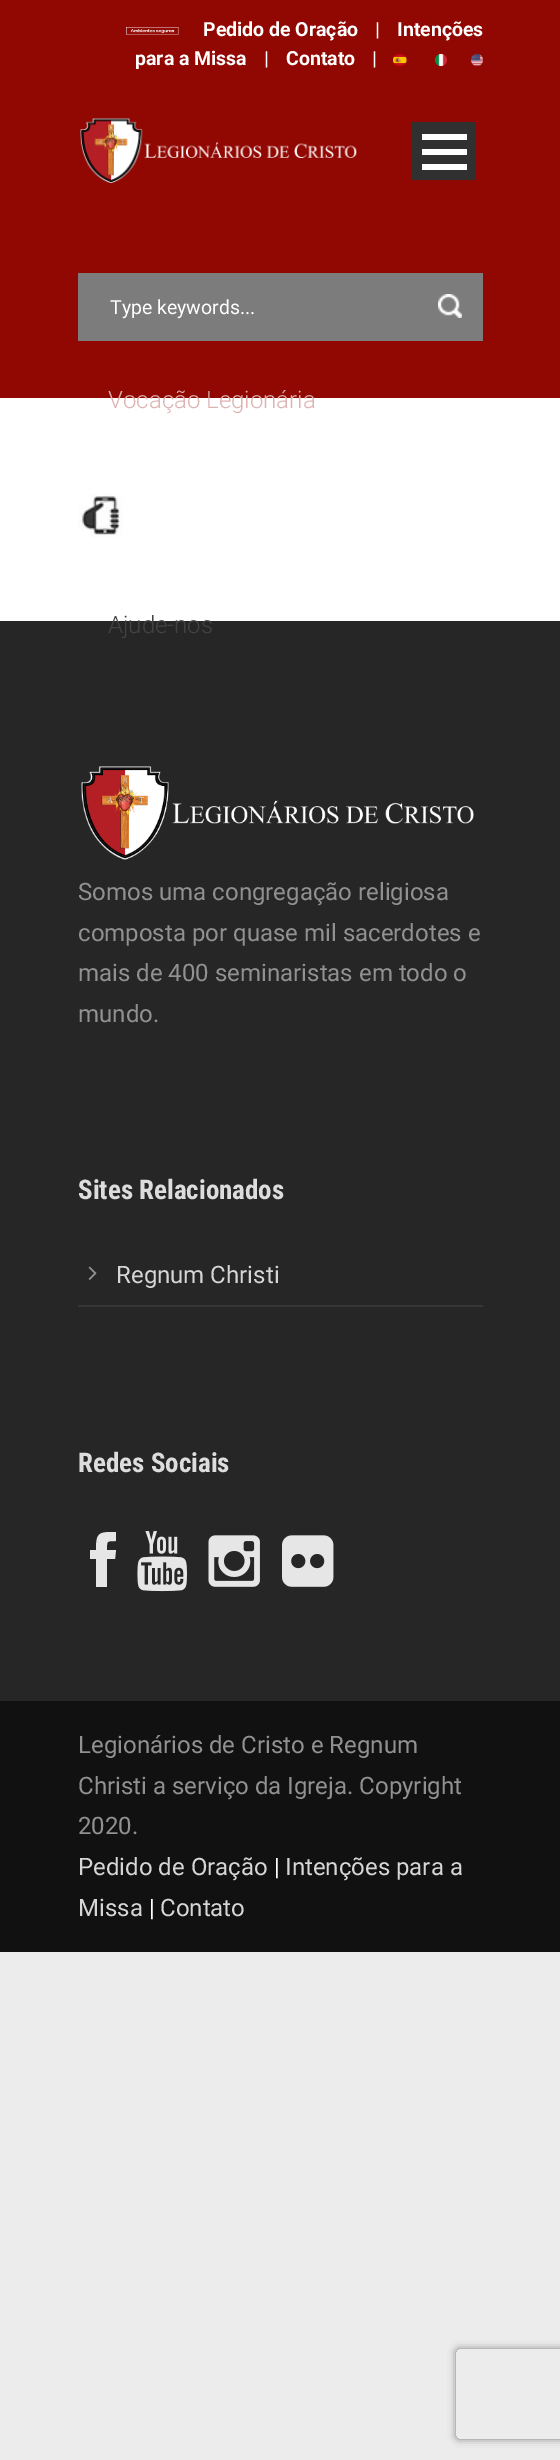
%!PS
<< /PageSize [560 2460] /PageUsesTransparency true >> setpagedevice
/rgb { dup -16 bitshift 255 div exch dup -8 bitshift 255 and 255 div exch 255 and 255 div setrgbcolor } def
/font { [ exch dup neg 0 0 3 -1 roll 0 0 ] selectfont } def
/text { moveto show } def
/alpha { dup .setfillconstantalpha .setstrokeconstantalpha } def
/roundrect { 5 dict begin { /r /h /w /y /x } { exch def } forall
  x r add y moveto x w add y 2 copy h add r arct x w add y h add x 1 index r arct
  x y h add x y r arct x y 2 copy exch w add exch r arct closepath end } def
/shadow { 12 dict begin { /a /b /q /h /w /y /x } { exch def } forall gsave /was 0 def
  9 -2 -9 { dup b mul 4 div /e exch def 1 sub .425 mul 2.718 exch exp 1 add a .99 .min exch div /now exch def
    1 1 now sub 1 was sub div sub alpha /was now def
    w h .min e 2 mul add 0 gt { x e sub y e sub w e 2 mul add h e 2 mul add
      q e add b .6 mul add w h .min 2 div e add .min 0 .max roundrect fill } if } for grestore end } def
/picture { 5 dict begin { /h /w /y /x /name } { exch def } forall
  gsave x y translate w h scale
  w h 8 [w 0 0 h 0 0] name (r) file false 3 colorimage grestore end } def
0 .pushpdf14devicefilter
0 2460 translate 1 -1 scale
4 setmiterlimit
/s1 { /Roboto-Bold 19.5 font 16#FFFFFF rgb } def
/s2 { /Roboto-Regular 19.5 font 16#FFFFFF rgb } def
/s3 { /Roboto-Light 24 font 16#DDB3B2 rgb } def
/s4 { /Roboto-Light 24 font 16#424242 rgb } def
/s5 { /Roboto-Regular 24 font 16#919191 rgb } def
/s6 { /RobotoCondensed-Bold 27 font 16#DDDDDD rgb } def
/s7 { /Roboto-Regular 24 font 16#D6D6D6 rgb } def
/s8 { /Roboto-Regular 24 font 16#FFFFFF rgb } def
16#ECECEC rgb
0 0 560 2460 rectfill
16#FFFFFF rgb
0 398 560 223 rectfill
(pic1.raw) 78 493 45 45 picture
16#910803 rgb
0 0 560 398 rectfill
(pic2.raw) 126 27 53 8 picture
s1
(Pedido de Oração) 203 36 text
(|) 375 36 text
(Intenções) 397 36 text
(para a Missa) 135 65 text
(|) 264 65 text
(Contato) 286 65 text
(|) 372 65 text
(pic3.raw) 393 54 14 12 picture
(pic4.raw) 435 54 12 12 picture
(pic5.raw) 471 54 12 12 picture
16#7C7C7C rgb
78 273 405 68 rectfill
s2
(Type keywords...) 110 314 text
(pic6.raw) 438 294 24 24 picture
(pic7.raw) 80 118 277 65 picture
16#303030 rgb
411 122 65 58 rectfill
16#FFFFFF rgb
422 164 45 6 rectfill
422 149 45 6 rectfill
422 134 45 6 rectfill
s3
(Vocação Legionária) 108 408 text
16#262626 rgb
0 621 560 1080 rectfill
s4
(Ajude-nos) 108 633 text
(pic8.raw) 81 766 393 94 picture
s5
(Somos uma congregação religiosa) 78 900 text
(composta por quase mil sacerdotes e) 78 941 text
(mais de 400 seminaristas em todo o) 78 981 text
(mundo.) 78 1022 text
s6
(Sites Relacionados) 78 1199 text
16#363636 rgb
78 1305 405 2 rectfill
(pic9.raw) 88 1266 9 14 picture
s7
(Regnum Christi) 116 1283 text
s6
(Redes Sociais) 78 1472 text
16#E6E6E6 rgb
107 1550 moveto 116 1550 lineto 115 1559 lineto 107 1559 lineto 107 1587 lineto 96 1587 lineto 96 1559 lineto 90 1559 lineto 90 1550 lineto 96 1550 lineto 96 1532 99 1532 116 1532 curveto 116 1541 lineto 106 1541 107 1541 107 1550 curveto closepath fill
(pic10.raw) 137 1531 50 61 picture
(pic11.raw) 208 1535 52 52 picture
(pic12.raw) 282 1535 52 52 picture
16#111111 rgb
0 1701 560 251 rectfill
s5
(Legionários de Cristo e Regnum) 78 1753 text
(Christi a serviço da Igreja. Copyright) 78 1794 text
(2020.) 78 1834 text
s7
(Pedido de Oração) 78 1875 text
s8
(|) 274 1875 text
s7
(Intenções para a) 285 1875 text
(Missa) 78 1916 text
s8
(|) 149 1916 text
s7
(Contato) 160 1916 text
gsave
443 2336 moveto 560 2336 lineto 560 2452 lineto 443 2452 lineto closepath 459 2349 moveto 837 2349 lineto 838.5 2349 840 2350.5 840 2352 curveto 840 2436 lineto 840 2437.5 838.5 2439 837 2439 curveto 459 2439 lineto 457.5 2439 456 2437.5 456 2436 curveto 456 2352 lineto 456 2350.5 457.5 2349 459 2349 curveto closepath eoclip newpath
16#808080 rgb
456 2349 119 90 3 4 1 shadow
grestore
.poppdf14devicefilter showpage
